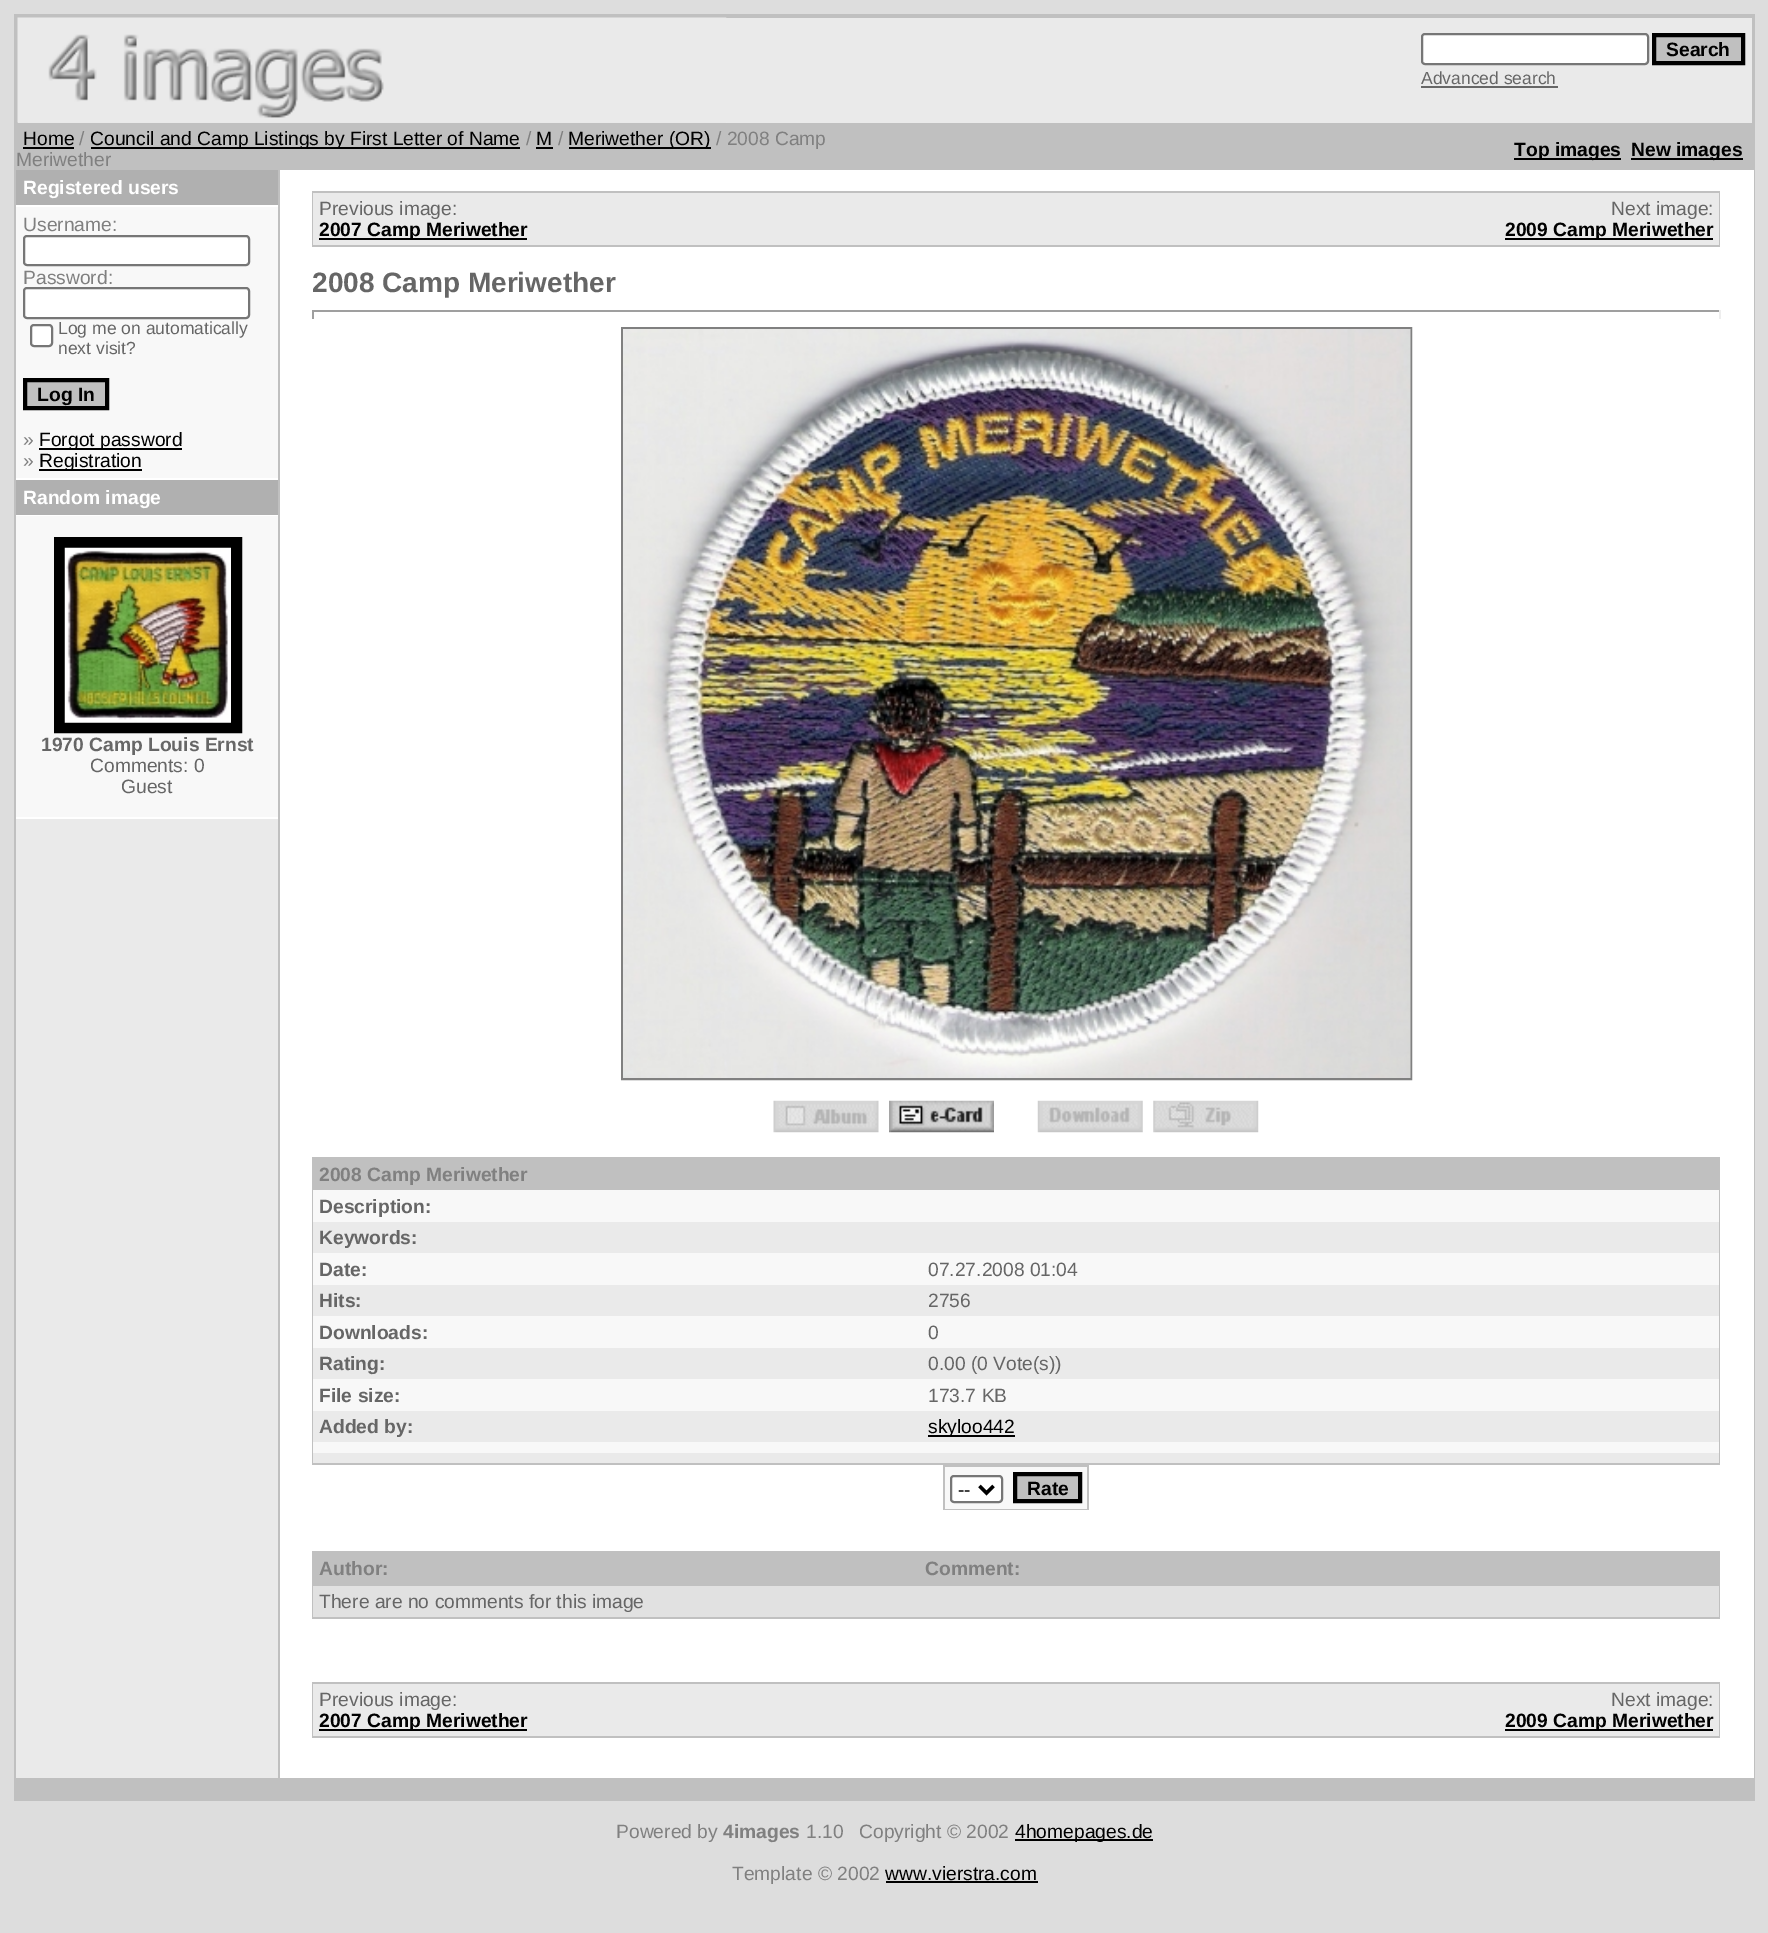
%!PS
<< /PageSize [1768 1933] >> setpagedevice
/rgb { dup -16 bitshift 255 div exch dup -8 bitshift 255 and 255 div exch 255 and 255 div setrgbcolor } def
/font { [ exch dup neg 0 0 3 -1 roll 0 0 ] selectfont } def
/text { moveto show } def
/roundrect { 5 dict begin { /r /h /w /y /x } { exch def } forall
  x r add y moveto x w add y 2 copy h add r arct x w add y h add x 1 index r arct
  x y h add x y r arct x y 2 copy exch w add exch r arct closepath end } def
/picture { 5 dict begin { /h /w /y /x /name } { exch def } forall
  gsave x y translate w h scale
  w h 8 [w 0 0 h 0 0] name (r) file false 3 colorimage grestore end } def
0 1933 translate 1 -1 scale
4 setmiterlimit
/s1 { /LiberationSans-Bold 19.25 font 16#000000 rgb } def
/s2 { /LiberationSans-Regular 17.5 font 16#666666 rgb } def
/s3 { /LiberationSans-Regular 19.25 font 16#000000 rgb } def
/s4 { /LiberationSans-Regular 19.25 font 16#808080 rgb } def
/s5 { /LiberationSans-Bold 19.25 font 16#FFFFFF rgb } def
/s6 { /LiberationSans-Bold 19.25 font 16#666666 rgb } def
/s7 { /LiberationSans-Regular 19.25 font 16#666666 rgb } def
/s8 { /LiberationSans-Bold 28 font 16#666666 rgb } def
/s9 { /LiberationSans-Bold 19.25 font 16#808080 rgb } def
16#DDDDDD rgb
0 0 1768 1933 rectfill
16#C0C0C0 rgb
14 14 1741 1787 rectfill
16#EAEAEA rgb
18 18 1734 105 rectfill
(pic1.raw) 17 17 710 106 picture
16#FFFFFF rgb
1422 34 226 30 3 roundrect gsave fill grestore
16#767676 rgb
2 setlinewidth
stroke
16#C0C0C0 rgb
1654 35 moveto 1743 35 lineto 1743 63 lineto 1654 63 lineto closepath gsave fill grestore
16#000000 rgb
4 setlinewidth
stroke
s1
(Search) 1666 56 text
s2
(Advanced search) 1421 84 text
1421 86 137 2 rectfill
16#FFFFFF rgb
280 170 1474 1608 rectfill
s3
(Home) 23 145 text
23 147 51 2 rectfill
s4
(/) 79 145 text
16#000000 rgb
91 147 429 2 rectfill
(Council and Camp Listings by First Letter of Name) 90 145 text
s4
(/) 526 145 text
s3
(M) 536 145 text
536 147 17 2 rectfill
s4
(/) 558 145 text
16#000000 rgb
569 147 142 2 rectfill
(Meriwether \(OR\)) 568 145 text
s4
(/ 2008 Camp) 716 145 text
(Meriwether) 16 166 text
16#000000 rgb
1514 158 107 2 rectfill
s1
(Top images) 1514 156 text
1631 158 112 2 rectfill
(New images) 1631 156 text
16#EAEAEA rgb
16 819 262 959 rectfill
16#B0B0B0 rgb
16 170 262 35 rectfill
s5
(Registered users) 23 194 text
16 205 262 2 rectfill
16#F8F8F8 rgb
16 207 262 271 rectfill
s4
(Username:) 23 231 text
16#FFFFFF rgb
24 236 225 29 3 roundrect gsave fill grestore
16#767676 rgb
2 setlinewidth
stroke
s4
(Password:) 23 284 text
16#FFFFFF rgb
24 288 225 30 3 roundrect gsave fill grestore
16#767676 rgb
stroke
16#FFFFFF rgb
31 325 21 21 3 roundrect gsave fill grestore
16#767676 rgb
stroke
s2
(Log me on automatically) 58 334 text
(next visit?) 58 354 text
16#C0C0C0 rgb
25 380 moveto 107 380 lineto 107 408 lineto 25 408 lineto closepath gsave fill grestore
16#000000 rgb
4 setlinewidth
stroke
s1
(Log In) 37 401 text
s4
(») 23 446 text
16#000000 rgb
39 448 143 2 rectfill
(Forgot password) 39 446 text
s4
(») 23 467 text
16#000000 rgb
39 469 103 2 rectfill
(Registration) 39 467 text
16#FFFFFF rgb
16 478 262 2 rectfill
16#B0B0B0 rgb
16 480 262 35 rectfill
s5
(Random image) 23 504 text
16 515 262 1 rectfill
16#F8F8F8 rgb
16 516 262 301 rectfill
16#000000 rgb
11 setlinewidth
59.5 542.5 177 185 rectstroke
(pic2.raw) 64 547 167 176 picture
s6
(1970 Camp Louis Ernst) 41 751 text
s7
(Comments: 0) 90 772 text
(Guest) 121 793 text
16#FFFFFF rgb
16 817 262 2 rectfill
16#C0C0C0 rgb
312 191 1408 56 rectfill
16#EAEAEA rgb
313 193 1406 52 rectfill
s7
(Previous image:) 319 215 text
16#000000 rgb
319 238 208 2 rectfill
s1
(2007 Camp Meriwether) 319 236 text
s7
(Next image:) 1611 215 text
16#000000 rgb
1505 238 208 2 rectfill
s1
(2009 Camp Meriwether) 1505 236 text
s8
(2008 Camp Meriwether) 312 292 text
16#9F9F9F rgb
312 310 1408 2 rectfill
16#EEEEEE rgb
1719 310 2 9 rectfill
16#9F9F9F rgb
312 310 2 9 rectfill
16#808080 rgb
2 setlinewidth
622 328 789 751 rectstroke
(pic3.raw) 623 329 788 749 picture
(pic4.raw) 773 1100 106 33 picture
(pic5.raw) 889 1100 105 33 picture
(pic6.raw) 1037 1100 106 33 picture
(pic7.raw) 1153 1100 106 33 picture
16#C0C0C0 rgb
312 1157 1408 308 rectfill
s9
(2008 Camp Meriwether) 319 1181 text
16#F8F8F8 rgb
313 1190 1406 32 rectfill
s6
(Description:) 319 1213 text
16#EAEAEA rgb
313 1222 1406 31 rectfill
s6
(Keywords:) 319 1244 text
16#F8F8F8 rgb
313 1253 1406 32 rectfill
s6
(Date:) 319 1276 text
s7
(07.27.2008 01:04) 928 1276 text
16#EAEAEA rgb
313 1285 1406 31 rectfill
s6
(Hits:) 319 1307 text
s7
(2756) 928 1307 text
16#F8F8F8 rgb
313 1316 1406 32 rectfill
s6
(Downloads:) 319 1339 text
s7
(0) 928 1339 text
16#EAEAEA rgb
313 1348 1406 31 rectfill
s6
(Rating:) 319 1370 text
s7
(0.00 \(0 Vote\(s\)\)) 928 1370 text
16#F8F8F8 rgb
313 1379 1406 32 rectfill
s6
(File size:) 319 1402 text
s7
(173.7 KB) 928 1402 text
16#EAEAEA rgb
313 1411 1406 31 rectfill
s6
(Added by:) 319 1433 text
16#000000 rgb
928 1435 87 2 rectfill
s3
(skyloo442) 928 1433 text
16#F8F8F8 rgb
313 1442 1406 11 rectfill
16#EAEAEA rgb
313 1453 1406 10 rectfill
16#C0C0C0 rgb
943 1465 146 45 rectfill
16#F8F8F8 rgb
945 1467 142 42 rectfill
16#FFFFFF rgb
951 1476 51 26 3 roundrect gsave fill grestore
16#767676 rgb
stroke
16#000000 rgb
3.5 setlinewidth
979.5 1486 moveto 986.5 1493 lineto 993.5 1486 lineto stroke
(--) 958 1496 text
16#C0C0C0 rgb
1015 1474 moveto 1080 1474 lineto 1080 1501 lineto 1015 1501 lineto closepath gsave fill grestore
16#000000 rgb
4 setlinewidth
stroke
s1
(Rate) 1027 1495 text
16#C0C0C0 rgb
312 1551 1408 68 rectfill
s9
(Author:) 319 1575 text
(Comment:) 925 1575 text
16#E1E1E1 rgb
313 1586 1406 31 rectfill
s7
(There are no comments for this image) 319 1608 text
16#C0C0C0 rgb
312 1682 1408 56 rectfill
16#EAEAEA rgb
313 1684 1406 52 rectfill
s7
(Previous image:) 319 1706 text
16#000000 rgb
319 1729 208 2 rectfill
s1
(2007 Camp Meriwether) 319 1727 text
s7
(Next image:) 1611 1706 text
16#000000 rgb
1505 1729 208 2 rectfill
s1
(2009 Camp Meriwether) 1505 1727 text
s4
(Powered by) 616 1838 text
s9
(4images) 723 1838 text
s4
(1.10) 806 1838 text
(Copyright © 2002) 859 1838 text
16#000000 rgb
1015 1839 138 2 rectfill
(4homepages.de) 1015 1838 text
s4
(Template © 2002) 732 1880 text
s3
(www.vierstra.com) 885 1880 text
886 1881 152 2 rectfill
showpage
